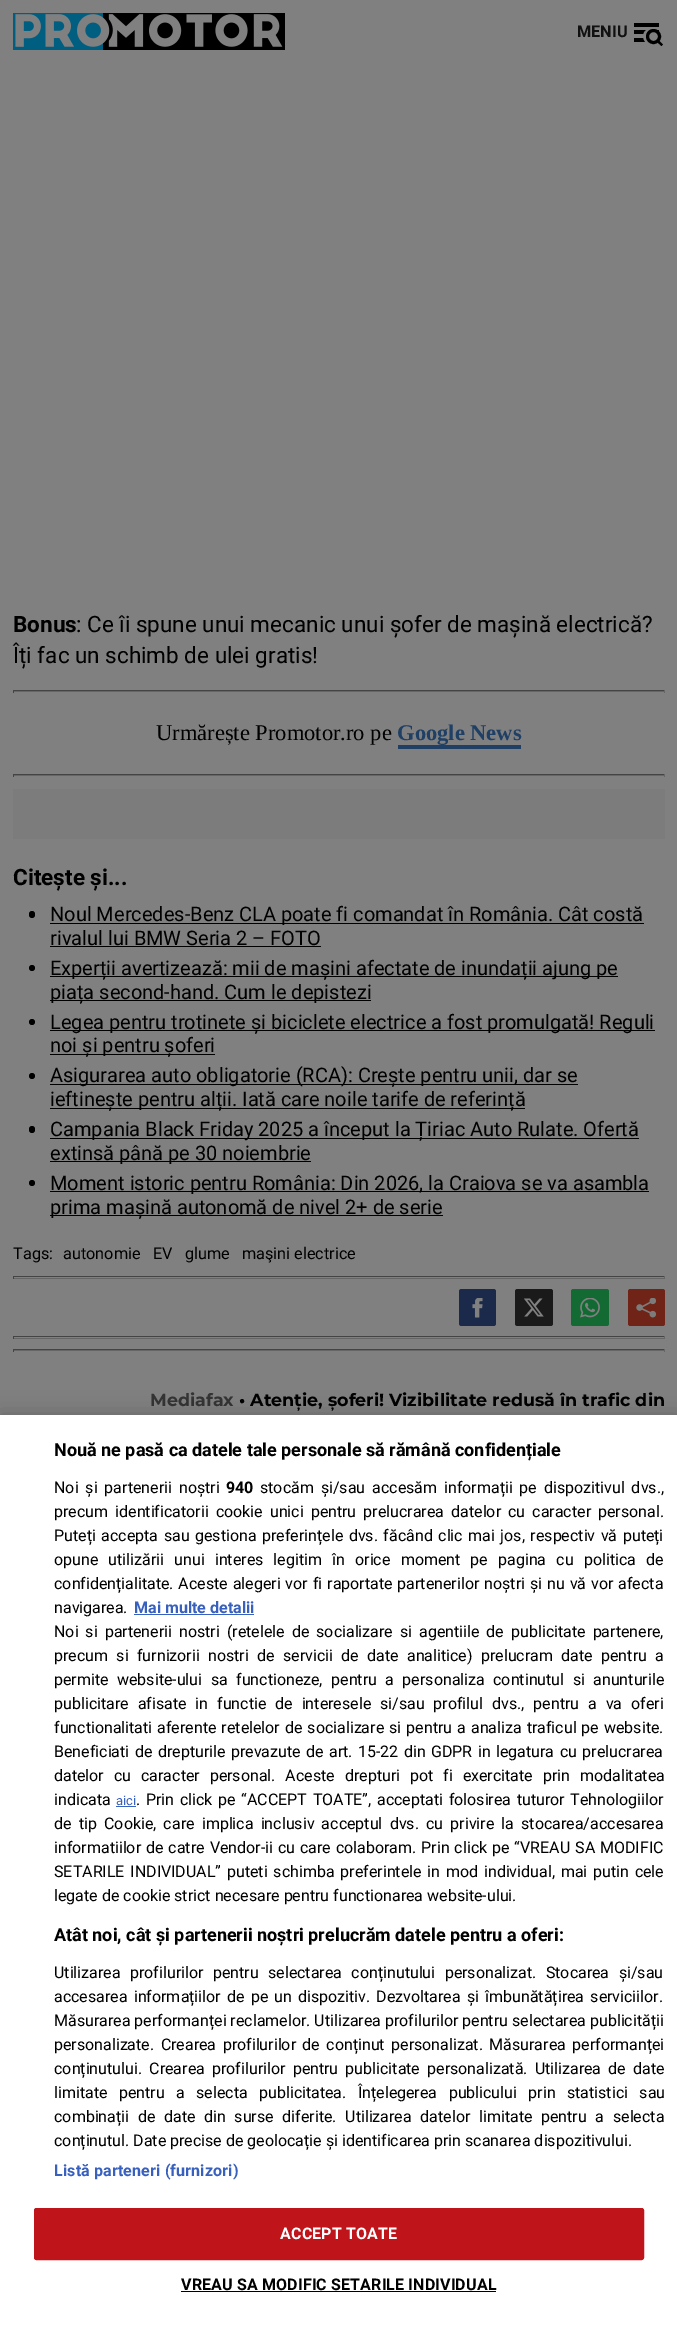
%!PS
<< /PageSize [677 2328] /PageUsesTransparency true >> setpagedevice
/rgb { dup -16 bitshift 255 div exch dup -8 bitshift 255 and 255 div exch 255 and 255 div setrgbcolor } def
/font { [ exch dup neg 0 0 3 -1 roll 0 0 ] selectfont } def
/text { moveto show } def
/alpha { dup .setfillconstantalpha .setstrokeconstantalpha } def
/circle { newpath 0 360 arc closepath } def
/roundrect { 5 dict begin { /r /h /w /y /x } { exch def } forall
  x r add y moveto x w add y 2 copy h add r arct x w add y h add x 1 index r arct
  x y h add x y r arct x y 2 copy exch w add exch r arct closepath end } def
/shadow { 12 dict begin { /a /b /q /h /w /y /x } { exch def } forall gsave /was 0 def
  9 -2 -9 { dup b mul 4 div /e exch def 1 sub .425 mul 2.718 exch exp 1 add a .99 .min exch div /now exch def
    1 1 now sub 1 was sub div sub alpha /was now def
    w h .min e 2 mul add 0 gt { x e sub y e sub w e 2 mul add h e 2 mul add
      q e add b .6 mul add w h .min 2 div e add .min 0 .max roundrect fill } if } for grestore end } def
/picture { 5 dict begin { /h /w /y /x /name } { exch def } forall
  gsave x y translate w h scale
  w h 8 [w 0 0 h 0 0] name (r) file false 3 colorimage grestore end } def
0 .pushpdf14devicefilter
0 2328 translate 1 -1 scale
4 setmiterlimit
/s1 { /Roboto-Bold 16.25 font 16#111111 rgb } def
/s2 { /Roboto-Bold 22.5 font 16#000000 rgb } def
/s3 { /Roboto-Regular 22.5 font 16#000000 rgb } def
/s4 { /LiberationSerif-Regular 22.5 font 16#000000 rgb } def
/s5 { /LiberationSerif-Bold 22.5 font 16#1F3F65 rgb } def
/s6 { /Roboto-Regular 20 font 16#000000 rgb } def
/s7 { /Roboto-Regular 16.25 font 16#000000 rgb } def
/s8 { /Montserrat-Bold 17.5 font 16#333333 rgb } def
/s9 { /Montserrat-Bold 17.5 font 16#000000 rgb } def
/s10 { /Roboto-Bold 18 font 16#000000 rgb } def
/s11 { /Roboto-Bold 16 font 16#000000 rgb } def
/s12 { /Roboto-Regular 16 font 16#000000 rgb } def
/s13 { /Roboto-Bold 16 font 16#3860BE rgb } def
/s14 { /Roboto-Regular 13 font 16#3860BE rgb } def
16#808080 rgb
0 0 677 2328 rectfill
(pic1.raw) 13 13 272 37 picture
s1
(MENIU) 577 37 text
16#000000 rgb
634 30 25 4 rectfill
634 23 25 4 rectfill
634 38 15 4 rectfill
16#808080 rgb
650.5 29 moveto 639 29 642 47 652.5 43.5 curveto 645 42.5 644 31.5 651.5 29 curveto closepath fill
653.5 36.5 6 circle gsave fill grestore
16#000000 rgb
3 setlinewidth
stroke
657 42 moveto 658.5 40 lineto 663 44.5 lineto 661.5 46 lineto closepath fill
s2
(Bonus) 13 632 text
s3
(: Ce îi spune unui mecanic unui șofer de mașină electrică?) 76 632 text
(Îți fac un schimb de ulei gratis!) 13 663 text
16#444444 rgb
13 690 652 1 rectfill
16#666666 rgb
664 690 1 3 rectfill
13 691 652 1 rectfill
16#444444 rgb
13 690 1 3 rectfill
s4
(Urmărește Promotor.ro pe) 156 740 text
s5
(Google News) 397 740 text
398 745 123 4 rectfill
16#444444 rgb
13 774 652 1 rectfill
16#666666 rgb
664 774 1 3 rectfill
13 775 652 1 rectfill
16#444444 rgb
13 774 1 3 rectfill
16#7C7C7C rgb
13 789 652 50 rectfill
s2
(Citește și...) 13 885 text
29 911 6 7 3 roundrect fill
50 923 594 1 rectfill
s6
(Noul Mercedes-Benz CLA poate fi comandat în România. Cât costă) 50 921 text
(rivalul lui BMW Seria 2 – FOTO) 50 945 text
50 946 271 1 rectfill
32 968 3 circle fill
50 976 568 1 rectfill
(Experții avertizează: mii de mașini afectate de inundații ajung pe) 50 975 text
50 1000 321 1 rectfill
(piața second-hand. Cum le depistezi) 50 999 text
32 1022 3 circle fill
50 1030 605 1 rectfill
(Legea pentru trotinete și biciclete electrice a fost promulgată! Reguli) 50 1029 text
50 1054 165 1 rectfill
(noi și pentru șoferi) 50 1052 text
32 1076 3 circle fill
50 1084 528 1 rectfill
(Asigurarea auto obligatorie \(RCA\): Crește pentru unii, dar se) 50 1082 text
50 1108 475 1 rectfill
(ieftinește pentru alții. Iată care noile tarife de referință) 50 1106 text
29 1126 6 7 3 roundrect fill
50 1138 589 1 rectfill
(Campania Black Friday 2025 a început la Țiriac Auto Rulate. Ofertă) 50 1136 text
50 1161 261 1 rectfill
(extinsă până pe 30 noiembrie) 50 1160 text
32 1183 3 circle fill
50 1191 599 1 rectfill
(Moment istoric pentru România: Din 2026, la Craiova se va asambla) 50 1190 text
50 1215 393 1 rectfill
(prima mașină autonomă de nivel 2+ de serie) 50 1214 text
s7
(Tags:) 13 1259 text
(autonomie) 63 1259 text
(EV) 153 1259 text
(glume) 185 1259 text
(maşini electrice) 242 1259 text
16#444444 rgb
13 1276 652 1 rectfill
16#666666 rgb
664 1276 1 3 rectfill
13 1278 652 1 rectfill
16#444444 rgb
13 1276 1 3 rectfill
16#1B294B rgb
459 1289 37 37 2.5 roundrect fill
(pic2.raw) 472 1298 11 20 picture
16#1A1A1A rgb
515 1289 38 37 2.5 roundrect fill
(pic3.raw) 524 1298 20 19 picture
16#136A33 rgb
571 1289 38 37 2.5 roundrect fill
(pic4.raw) 580 1298 20 20 picture
16#702317 rgb
628 1289 37 37 2.5 roundrect fill
(pic5.raw) 636 1298 20 20 picture
16#444444 rgb
13 1336 652 1 rectfill
16#666666 rgb
664 1336 1 3 rectfill
13 1338 652 1 rectfill
16#444444 rgb
13 1336 1 3 rectfill
13 1349 652 1 rectfill
16#666666 rgb
664 1349 1 3 rectfill
13 1350 652 1 rectfill
16#444444 rgb
13 1349 1 3 rectfill
s8
(Mediafax) 150 1406 text
s9
(• Atenție, șoferi! Vizibilitate redusă în trafic din) 239 1406 text
0 1415 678 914 0 11 0.2 shadow
16#FFFFFF rgb
0 1415 677 913 rectfill
s10
(Nouă ne pasă ca datele tale personale să rămână confidențiale) 54 1456 text
/Roboto-Regular 16 font
54 1493 moveto 3 0 32 (Noi și partenerii noștri) widthshow
s11
(940) 226 1493 text
/Roboto-Regular 16 font
260 1493 moveto 3 0 32 (stocăm și/sau accesăm informații pe dispozitivul dvs.,) widthshow
54 1517 moveto 3.1 0 32 (precum identificatorii cookie unici pentru prelucrarea datelor cu caracter personal.) widthshow
54 1541 moveto 1.6 0 32 (Puteți accepta sau gestiona preferințele dvs. făcând clic mai jos, respectiv vă puteți) widthshow
54 1565 moveto 6.25 0 32 (opune utilizării unui interes legitim în orice moment pe pagina cu politica de) widthshow
54 1589 moveto 1 0 32 (confidențialitate. Aceste alegeri vor fi raportate partenerilor noștri și nu vă vor afecta) widthshow
(navigarea.) 54 1613 text
s13
(Mai multe detalii) 134 1613 text
134 1614 120 1 rectfill
/Roboto-Regular 16 font
16#000000 rgb
54 1637 moveto 3.1 0 32 (Noi si partenerii nostri \(retelele de socializare si agentiile de publicitate partenere,) widthshow
54 1661 moveto 4.4 0 32 (precum si furnizorii nostri de servicii de date analitice\) prelucram date pentru a) widthshow
54 1685 moveto 4.5 0 32 (permite website-ului sa functioneze, pentru a personaliza continutul si anunturile) widthshow
54 1709 moveto 5 0 32 (publicitare afisate in functie de interesele si/sau profilul dvs., pentru a va oferi) widthshow
54 1733 moveto 1.1 0 32 (functionalitati aferente retelelor de socializare si pentru a analiza traficul pe website.) widthshow
54 1757 moveto 1.5 0 32 (Beneficiati de drepturile prevazute de art. 15-22 din GDPR in legatura cu prelucrarea) widthshow
54 1781 moveto 6 0 32 (datelor cu caracter personal. Aceste drepturi pot fi exercitate prin modalitatea) widthshow
(indicata) 54 1805 text
s14
(aici) 116 1805 text
116 1806 20 1 rectfill
/Roboto-Regular 16 font
16#000000 rgb
136 1805 moveto 1.75 0 32 (. Prin click pe “ACCEPT TOATE”, acceptati folosirea tuturor Tehnologiilor) widthshow
54 1829 moveto 3.25 0 32 (de tip Cookie, care implica inclusiv acceptul dvs. cu privire la stocarea/accesarea) widthshow
54 1853 moveto 1 0 32 (informatiilor de catre Vendor-ii cu care colaboram. Prin click pe “VREAU SA MODIFIC) widthshow
54 1877 moveto 1.9 0 32 (SETARILE INDIVIDUAL” puteti schimba preferintele in mod individual, mai putin cele) widthshow
(legate de cookie strict necesare pentru functionarea website-ului.) 54 1901 text
s10
(Atât noi, cât și partenerii noștri prelucrăm datele pentru a oferi:) 54 1941 text
/Roboto-Regular 16 font
54 1978 moveto 5.5 0 32 (Utilizarea profilurilor pentru selectarea conținutului personalizat. Stocarea și/sau) widthshow
54 2002 moveto 2.25 0 32 (accesarea informațiilor de pe un dispozitiv. Dezvoltarea și îmbunătățirea serviciilor.) widthshow
(Măsurarea performanței reclamelor. Utilizarea profilurilor pentru selectarea publicității) 54 2026 text
54 2050 moveto 2.5 0 32 (personalizate. Crearea profilurilor de conținut personalizat. Măsurarea performanței) widthshow
54 2074 moveto 3.25 0 32 (conținutului. Crearea profilurilor pentru publicitate personalizată. Utilizarea de date) widthshow
54 2098 moveto 7.5 0 32 (limitate pentru a selecta publicitatea. Înțelegerea publicului prin statistici sau) widthshow
54 2122 moveto 4.75 0 32 (combinații de date din surse diferite. Utilizarea datelor limitate pentru a selecta) widthshow
(conținutul. Date precise de geolocație și identificarea prin scanarea dispozitivului.) 54 2146 text
/Roboto-Bold 16 font
16#3860BE rgb
54 2176 moveto 0.15 0 (Listă parteneri \(furnizori\)) ashow
16#BF141A rgb
34.5 2208.5 609 51 2 roundrect gsave fill grestore
1 setlinewidth
stroke
16#FFFFFF rgb
280 2239 moveto 0.15 0 (ACCEPT TOATE) ashow
16#000000 rgb
181 2290 moveto 0.15 0 (VREAU SA MODIFIC SETARILE INDIVIDUAL) ashow
181 2291 315 1 rectfill
.poppdf14devicefilter showpage
